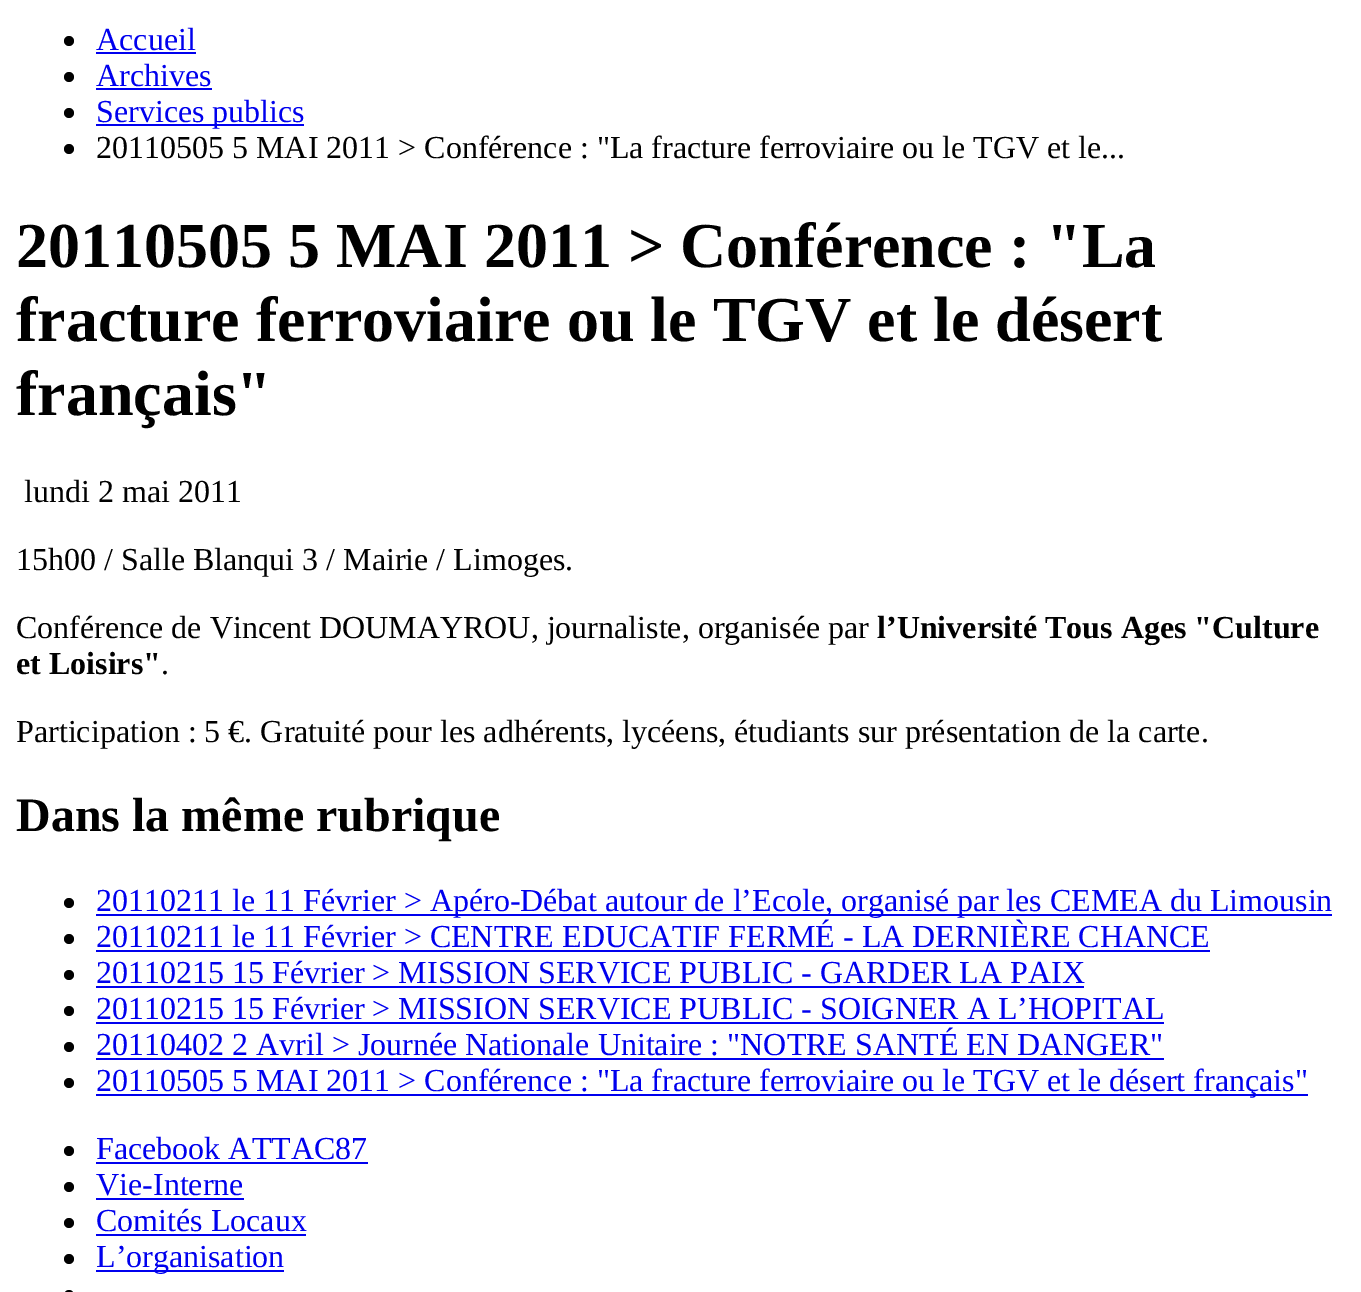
%!PS
<< /PageSize [1361 1292] >> setpagedevice
/rgb { dup -16 bitshift 255 div exch dup -8 bitshift 255 and 255 div exch 255 and 255 div setrgbcolor } def
/font { [ exch dup neg 0 0 3 -1 roll 0 0 ] selectfont } def
/text { moveto show } def
/circle { newpath 0 360 arc closepath } def
/roundrect { 5 dict begin { /r /h /w /y /x } { exch def } forall
  x r add y moveto x w add y 2 copy h add r arct x w add y h add x 1 index r arct
  x y h add x y r arct x y 2 copy exch w add exch r arct closepath end } def
0 1292 translate 1 -1 scale
4 setmiterlimit
/s1 { /LiberationSerif-Regular 32 font 16#0000EE rgb } def
/s2 { /LiberationSerif-Regular 32 font 16#000000 rgb } def
/s3 { /LiberationSerif-Bold 64 font 16#000000 rgb } def
/s4 { /LiberationSerif-Bold 32 font 16#000000 rgb } def
/s5 { /LiberationSerif-Bold 48 font 16#000000 rgb } def
16#FFFFFF rgb
0 0 1361 1292 rectfill
16#000000 rgb
69 41 5 circle fill
s1
(Accueil) 96 50 text
96 52 100 2 rectfill
16#000000 rgb
69 77 5 circle fill
s1
(Archives) 96 86 text
96 88 116 2 rectfill
16#000000 rgb
69 113 5 circle fill
16#0000EE rgb
96 124 208 2 rectfill
(Services publics) 96 122 text
16#000000 rgb
69 149 5 circle fill
(20110505 5 MAI 2011 > Conférence : "La fracture ferroviaire ou le TGV et le...) 96 158 text
s3
(20110505 5 MAI 2011 > Conférence : "La) 16 267 text
(fracture ferroviaire ou le TGV et le désert) 16 341 text
(français") 16 415 text
s2
(lundi 2 mai 2011) 24 502 text
(15h00 / Salle Blanqui 3 / Mairie / Limoges.) 16 570 text
(Conférence de Vincent DOUMAYROU, journaliste, organisée par) 16 638 text
s4
(l’Université Tous Ages "Culture) 877 638 text
(et Loisirs") 16 674 text
s2
(.) 161 674 text
(Participation : 5 €. Gratuité pour les adhérents, lycéens, étudiants sur présentation de la carte.) 16 742 text
s5
(Dans la même rubrique) 16 831 text
69 903 5 circle fill
16#0000EE rgb
96 914 1236 2 rectfill
s1
(20110211 le 11 Février > Apéro-Débat autour de l’Ecole, organisé par les CEMEA du Limousin) 96 911 text
16#000000 rgb
69 939 5 circle fill
s1
(20110211 le 11 Février > CENTRE EDUCATIF FERMÉ - LA DERNIÈRE CHANCE) 96 947 text
96 950 1114 2 rectfill
16#000000 rgb
69 975 5 circle fill
s1
(20110215 15 Février > MISSION SERVICE PUBLIC - GARDER LA PAIX) 96 983 text
96 986 988 2 rectfill
16#000000 rgb
69 1011 5 circle fill
s1
(20110215 15 Février > MISSION SERVICE PUBLIC - SOIGNER A L’HOPITAL) 96 1019 text
96 1022 1068 2 rectfill
16#000000 rgb
69 1047 5 circle fill
s1
(20110402 2 Avril > Journée Nationale Unitaire : "NOTRE SANTÉ EN DANGER") 96 1055 text
96 1058 1068 2 rectfill
16#000000 rgb
69 1083 5 circle fill
16#0000EE rgb
96 1094 1212 2 rectfill
(20110505 5 MAI 2011 > Conférence : "La fracture ferroviaire ou le TGV et le désert français") 96 1091 text
16#000000 rgb
69 1151 5 circle fill
s1
(Facebook ATTAC87) 96 1159 text
96 1162 272 2 rectfill
16#000000 rgb
69 1187 5 circle fill
s1
(Vie-Interne) 96 1195 text
96 1198 148 2 rectfill
16#000000 rgb
69 1223 5 circle fill
s1
(Comités Locaux) 96 1231 text
96 1234 210 2 rectfill
16#000000 rgb
69 1259 5 circle fill
16#0000EE rgb
96 1270 188 2 rectfill
(L’organisation) 96 1267 text
16#000000 rgb
64 1290 10 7 5 roundrect fill
showpage
